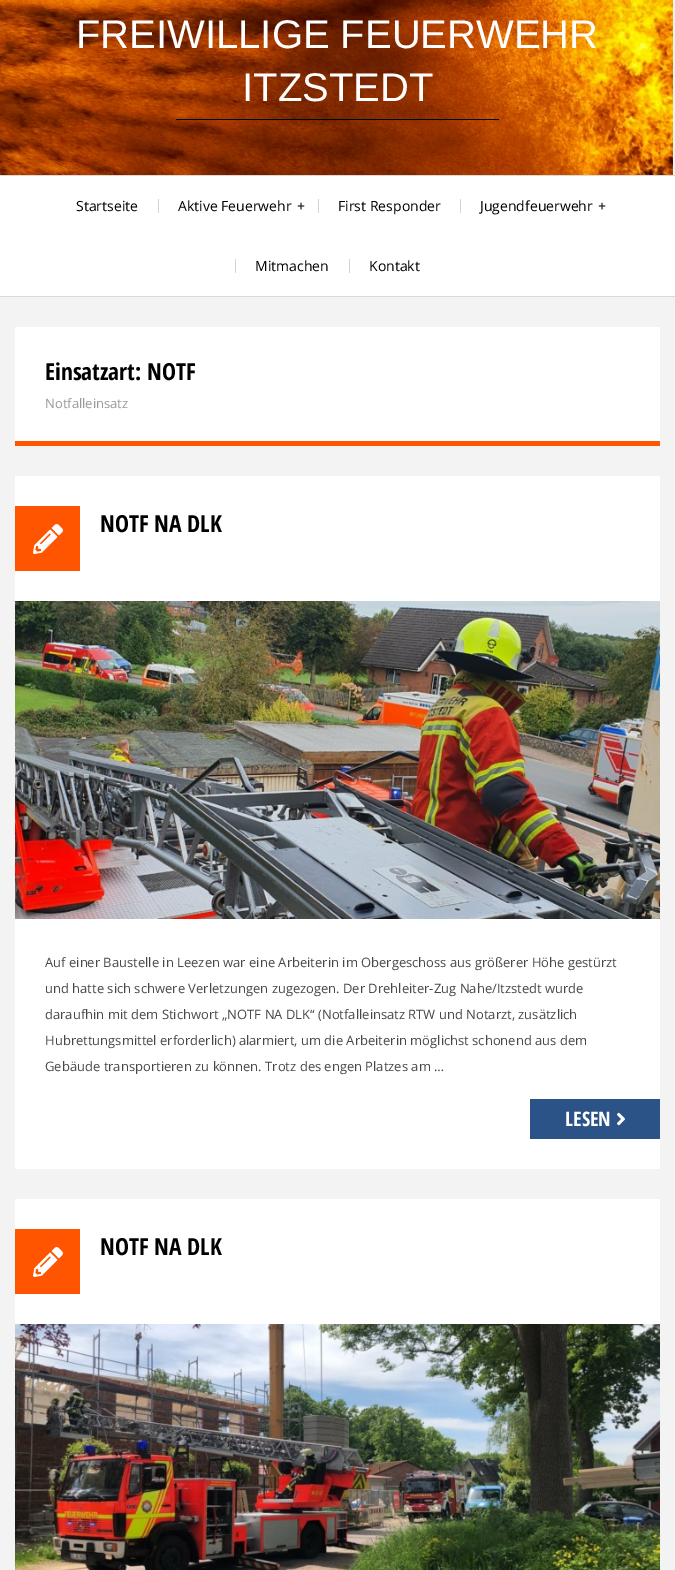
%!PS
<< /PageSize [675 1570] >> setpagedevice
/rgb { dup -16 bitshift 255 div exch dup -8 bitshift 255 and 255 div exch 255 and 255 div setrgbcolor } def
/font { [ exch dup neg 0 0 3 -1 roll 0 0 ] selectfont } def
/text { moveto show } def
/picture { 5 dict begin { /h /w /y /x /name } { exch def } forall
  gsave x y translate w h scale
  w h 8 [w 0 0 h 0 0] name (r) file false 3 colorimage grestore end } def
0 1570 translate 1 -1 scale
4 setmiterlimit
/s1 { /LiberationSans-Regular 40 font 16#FFFFFF rgb } def
/s2 { /OpenSans-Regular 14 font 16#000000 rgb } def
/s3 { /OpenSansCondensed-Bold 23.5 font 16#000000 rgb } def
/s4 { /OpenSans-Regular 13 font 16#999999 rgb } def
/s5 { /OpenSans-Regular 13 font 16#474747 rgb } def
/s6 { /OpenSansCondensed-Bold 20 font 16#FFFFFF rgb } def
16#F3F3F3 rgb
0 0 675 1570 rectfill
(pic1.raw) 0 0 673 175 picture
s1
(FREIWILLIGE FEUERWEHR) 76 48 text
(ITZSTEDT) 242 101 text
16#000000 rgb
176 119 323 1 rectfill
16#FFFFFF rgb
0 176 675 120 rectfill
16#D9D9D9 rgb
0 175 675 1 rectfill
0 296 675 1 rectfill
s2
(Startseite) 76 211 text
16#D3D3D3 rgb
158 199 1 14 rectfill
s2
(Aktive Feuerwehr) 178 211 text
(+) 297 211 text
16#D3D3D3 rgb
318 199 1 14 rectfill
s2
(First Responder) 338 211 text
16#D3D3D3 rgb
460 199 1 14 rectfill
s2
(Jugendfeuerwehr) 480 211 text
(+) 598 211 text
16#D3D3D3 rgb
235 259 1 14 rectfill
s2
(Mitmachen) 255 271 text
16#D3D3D3 rgb
349 259 1 14 rectfill
s2
(Kontakt) 369 271 text
16#FFFFFF rgb
15 327 645 114 rectfill
16#FF5400 rgb
15 441 645 5 rectfill
s3
(Einsatzart: NOTF) 45 380 text
s4
(Notfalleinsatz) 45 408 text
16#FFFFFF rgb
15 476 645 693 rectfill
16#FF5400 rgb
15 506 65 65 rectfill
(pic2.raw) 33 524 30 30 picture
s3
(NOTF NA DLK) 100 532 text
(pic3.raw) 15 601 645 318 picture
s5
(Auf einer Baustelle in Leezen war eine Arbeiterin im Obergeschoss aus größerer Höhe gestürzt) 45 967 text
(und hatte sich schwere Verletzungen zugezogen. Der Drehleiter-Zug Nahe/Itzstedt wurde) 45 993 text
(daraufhin mit dem Stichwort „NOTF NA DLK“ \(Notfalleinsatz RTW und Notarzt, zusätzlich) 45 1019 text
(Hubrettungsmittel erforderlich\) alarmiert, um die Arbeiterin möglichst schonend aus dem) 45 1045 text
(Gebäude transportieren zu können. Trotz des engen Platzes am …) 45 1071 text
16#2B5387 rgb
530 1099 130 40 rectfill
s6
(LESEN) 565 1126 text
(pic4.raw) 617 1112 8 14 picture
15 1199 645 125 rectfill
16#FF5400 rgb
15 1229 65 65 rectfill
(pic2.raw) 33 1247 30 30 picture
s3
(NOTF NA DLK) 100 1255 text
(pic5.raw) 15 1324 645 246 picture
showpage
